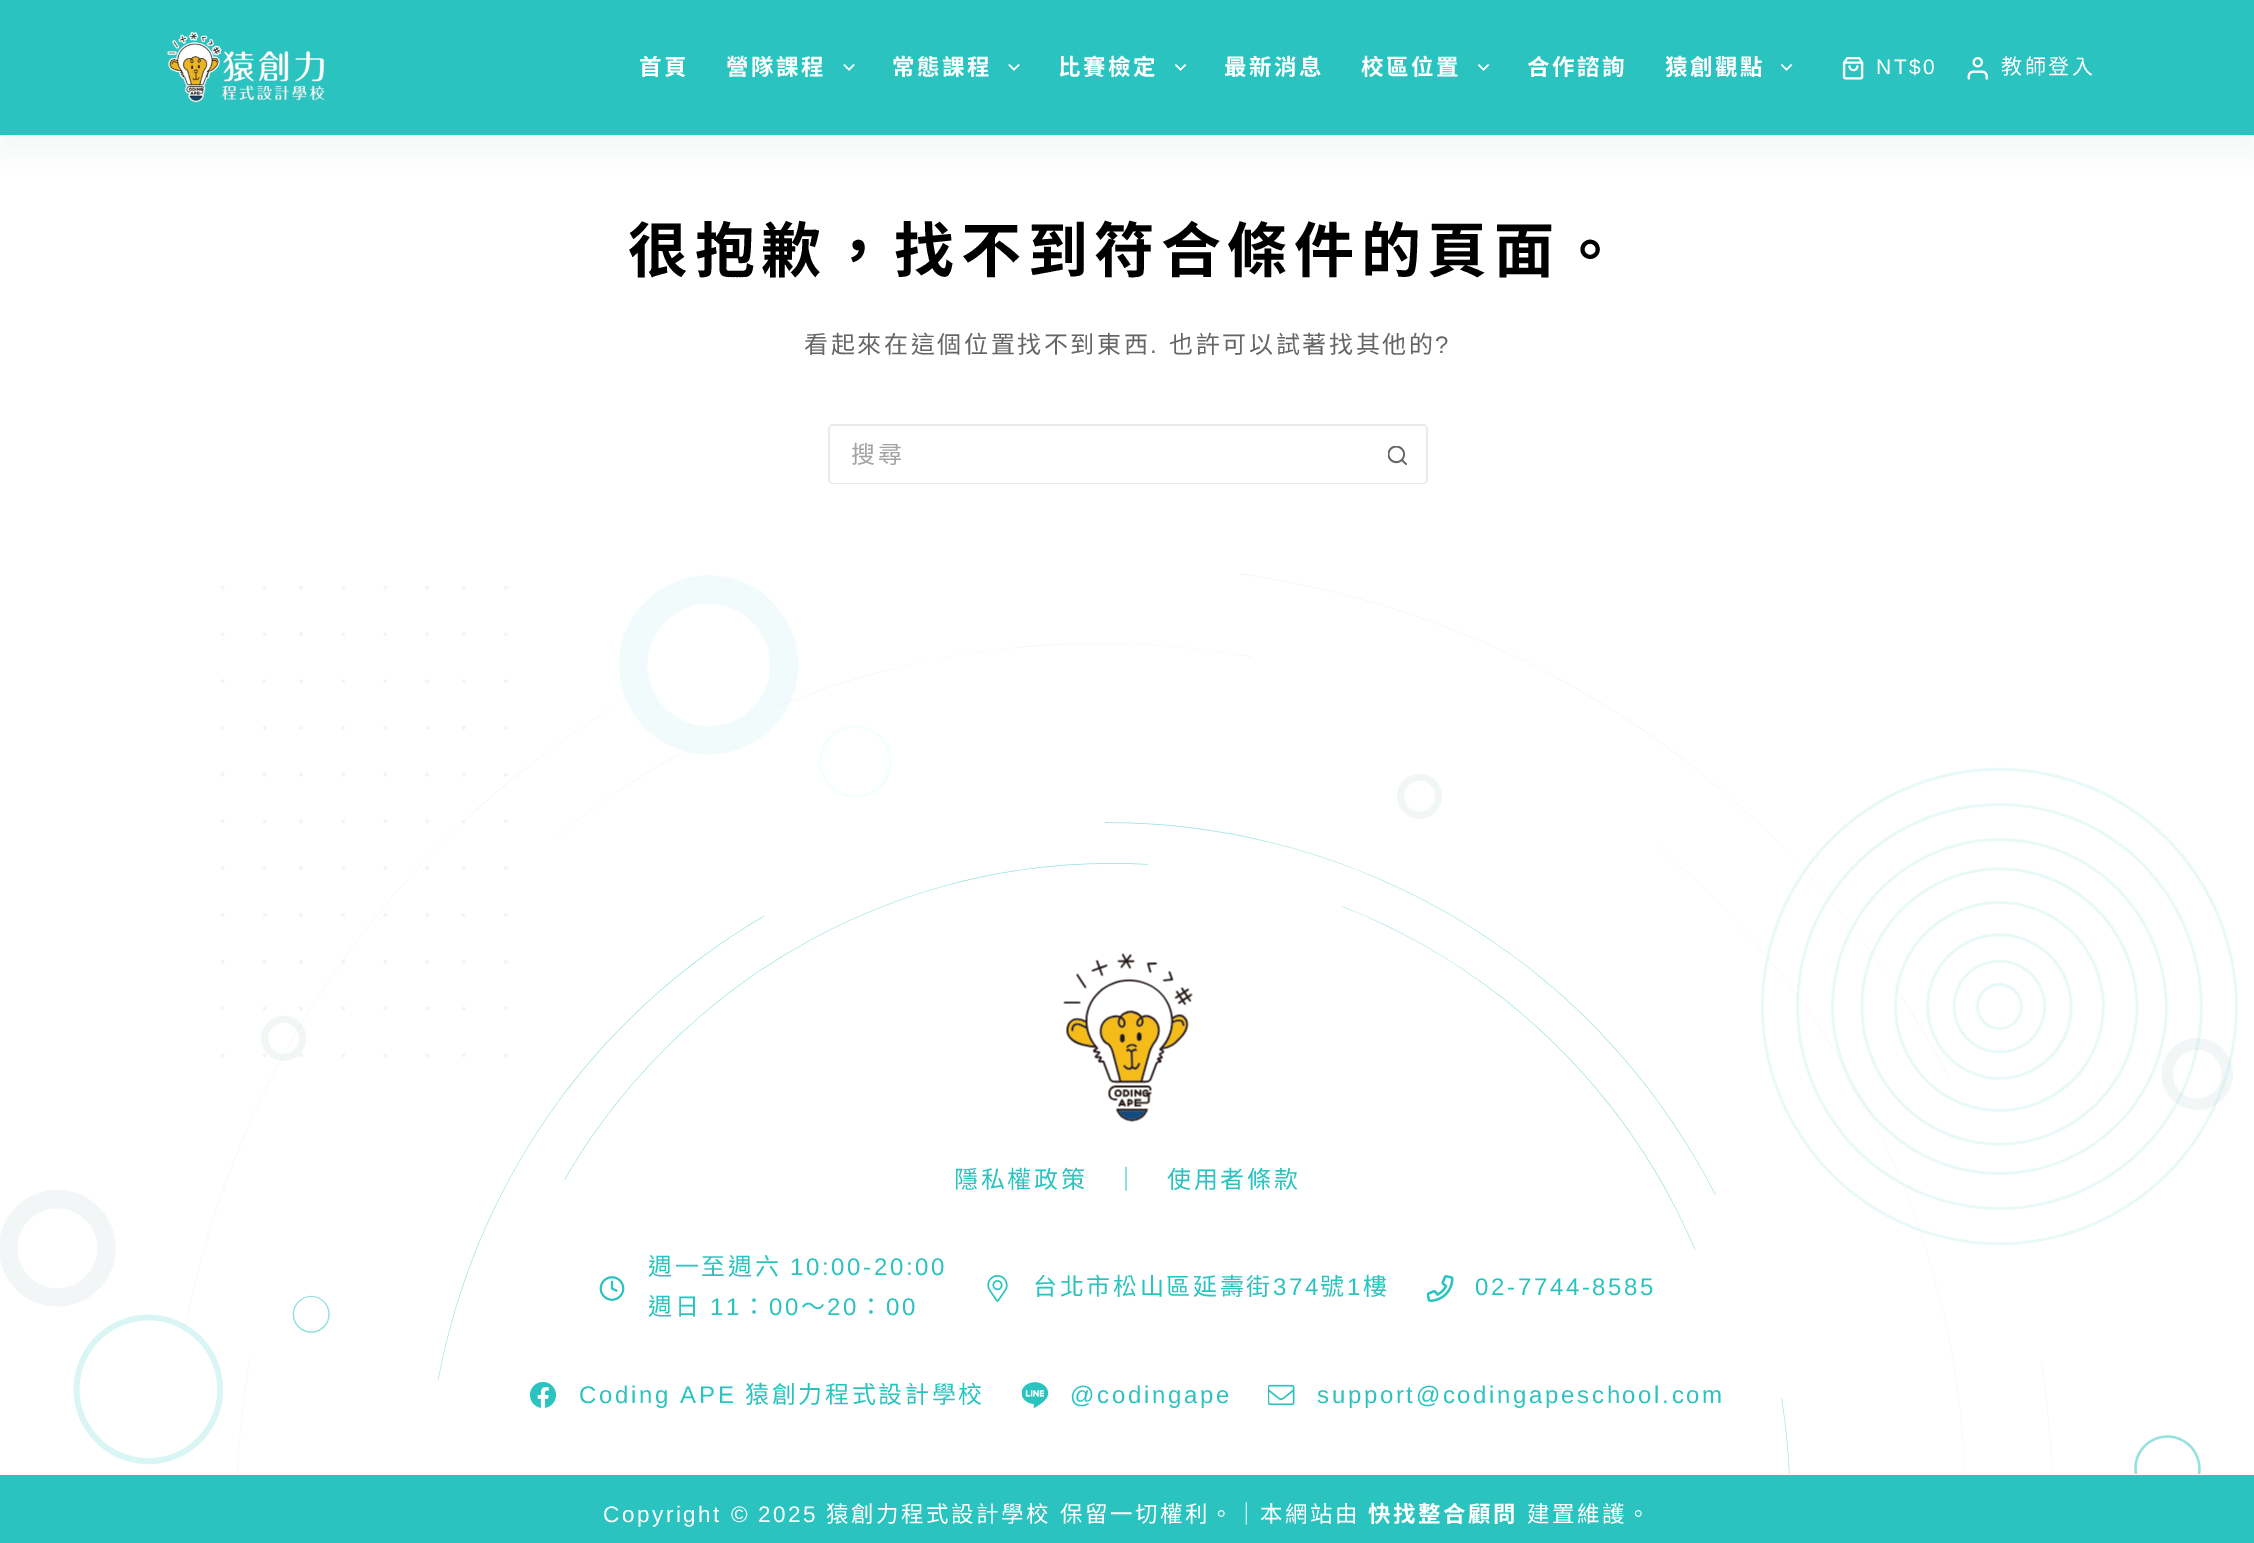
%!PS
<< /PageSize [2254 1543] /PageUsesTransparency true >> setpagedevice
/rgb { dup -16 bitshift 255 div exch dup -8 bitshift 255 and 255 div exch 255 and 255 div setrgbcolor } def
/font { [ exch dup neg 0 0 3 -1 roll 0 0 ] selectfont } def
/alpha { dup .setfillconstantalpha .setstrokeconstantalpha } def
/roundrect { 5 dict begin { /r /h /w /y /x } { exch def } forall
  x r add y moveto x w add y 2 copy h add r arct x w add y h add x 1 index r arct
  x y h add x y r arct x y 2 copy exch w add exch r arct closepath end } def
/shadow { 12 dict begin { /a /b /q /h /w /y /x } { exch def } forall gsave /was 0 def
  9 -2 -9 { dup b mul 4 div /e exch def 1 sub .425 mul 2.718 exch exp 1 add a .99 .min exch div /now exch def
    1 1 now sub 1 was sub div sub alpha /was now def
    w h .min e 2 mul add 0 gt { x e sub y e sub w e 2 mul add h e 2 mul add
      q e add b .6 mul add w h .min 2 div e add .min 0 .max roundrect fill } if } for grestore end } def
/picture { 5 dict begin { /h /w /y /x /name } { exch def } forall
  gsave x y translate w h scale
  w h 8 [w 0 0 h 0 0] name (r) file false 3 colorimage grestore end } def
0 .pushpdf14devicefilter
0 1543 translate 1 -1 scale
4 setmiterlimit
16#FFFFFF rgb
0 0 2254 1543 rectfill
16#2C3E50 rgb
0 15 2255 135 0 15 0.05 shadow
16#2AC3BF rgb
0 0 2254 135 rectfill
(pic1.raw) 167 32 158 71 picture
/NotoSansTC-Bold 22.5 font
16#FFFFFF rgb
639 75 moveto 2.5 0 (首頁) ashow
726 75 moveto 2.5 0 (營隊課程) ashow
(pic2.raw) 843 64 12 7 picture
892 75 moveto 2.5 0 (常態課程) ashow
(pic2.raw) 1008 64 12 7 picture
1058 75 moveto 2.5 0 (比賽檢定) ashow
(pic3.raw) 1175 64 12 7 picture
1224 75 moveto 2.5 0 (最新消息) ashow
1361 75 moveto 2.5 0 (校區位置) ashow
(pic3.raw) 1478 64 12 7 picture
1527 75 moveto 2.5 0 (合作諮詢) ashow
1665 75 moveto 2.5 0 (猿創觀點) ashow
(pic3.raw) 1781 64 12 7 picture
(pic4.raw) 1842 57 22 23 picture
/LiberationSans-Regular 21 font
1876 74 moveto 2.5 0 (NT$0) ashow
(pic5.raw) 1967 57 21 23 picture
/NotoSansCJKTC-Regular 21 font
2001 74 moveto 2.5 0 (教師登入) ashow
/NotoSansTC-Bold 60 font
16#000000 rgb
628 272 moveto 6.6 0 (很抱歉，找不到符合條件的頁面。) ashow
/NotoSansCJKTC-Regular 24 font
16#656565 rgb
804 353 moveto 2.65 0 (看起來在這個位置找不到東西) ashow
/LiberationSans-Regular 24 font
1150 353 moveto 2.65 0 (.) ashow
/NotoSansCJKTC-Regular 24 font
1169 353 moveto 2.65 0 (也許可以試著找其他的) ashow
/LiberationSans-Regular 24 font
1435 353 moveto 2.65 0 (?) ashow
16#EBEBEB rgb
832 424 moveto 1368 424 lineto 1368 484 lineto 832 484 lineto 830 484 828 482 828 480 curveto 828 429 lineto 828 427 830 424 832 424 curveto closepath 832 426 moveto 1368 426 lineto 1368 483 lineto 832 483 lineto 831 483 830 482 830 480 curveto 830 429 lineto 830 427 831 426 832 426 curveto closepath eofill
/NotoSansCJKTC-Regular 24 font
16#A3A3A3 rgb
851 463 moveto 2.65 0 (搜尋) ashow
16#EBEBEB rgb
1368 424 moveto 1424 424 lineto 1426 424 1428 427 1428 429 curveto 1428 480 lineto 1428 482 1426 484 1424 484 curveto 1368 484 lineto closepath 1368 426 moveto 1424 426 lineto 1425 426 1426 427 1426 429 curveto 1426 480 lineto 1426 482 1425 483 1424 483 curveto 1368 483 lineto closepath eofill
(pic6.raw) 1388 446 19 19 picture
(pic7.raw) 0 574 2238 900 picture
(pic8.raw) 1063 953 130 169 picture
16#2AC3BF rgb
954 1188 moveto 2.65 0 (隱私權政策　｜　使用者條款) ashow
(pic9.raw) 599 1276 26 25 picture
648 1275 moveto 2.65 0 (週一至週六) ashow
/LiberationSans-Regular 24 font
790 1275 moveto 2.65 0 (10:00-20:00) ashow
/NotoSansCJKTC-Regular 24 font
648 1315 moveto 2.65 0 (週日) ashow
/LiberationSans-Regular 24 font
710 1315 moveto 2.65 0 (11) ashow
/NotoSansCJKTC-Regular 24 font
742 1315 moveto 2.65 0 (：) ashow
/LiberationSans-Regular 24 font
769 1315 moveto 2.65 0 (00) ashow
/NotoSansCJKTC-Regular 24 font
801 1315 moveto 2.65 0 (～) ashow
/LiberationSans-Regular 24 font
827 1315 moveto 2.65 0 (20) ashow
/NotoSansCJKTC-Regular 24 font
859 1315 moveto 2.65 0 (：) ashow
/LiberationSans-Regular 24 font
886 1315 moveto 2.65 0 (00) ashow
(pic10.raw) 987 1275 21 27 picture
/NotoSansCJKTC-Regular 24 font
1033 1295 moveto 2.65 0 (台北市松山區延壽街) ashow
/LiberationSans-Regular 24 font
1273 1295 moveto 2.65 0 (374) ashow
/NotoSansCJKTC-Regular 24 font
1320 1295 moveto 2.65 0 (號) ashow
/LiberationSans-Regular 24 font
1347 1295 moveto 2.65 0 (1) ashow
/NotoSansCJKTC-Regular 24 font
1363 1295 moveto 2.65 0 (樓) ashow
(pic11.raw) 1427 1275 27 27 picture
/LiberationSans-Regular 24 font
1475 1295 moveto 2.65 0 (02-7744-8585) ashow
(pic12.raw) 530 1382 27 26 picture
579 1403 moveto 2.65 0 (Coding APE) ashow
/NotoSansCJKTC-Regular 24 font
745 1403 moveto 2.65 0 (猿創力程式設計學校) ashow
(pic13.raw) 1022 1382 27 26 picture
/LiberationSans-Regular 24 font
1070 1403 moveto 2.65 0 (@codingape) ashow
(pic14.raw) 1268 1384 27 22 picture
1317 1403 moveto 2.65 0 (support@codingapeschool.com) ashow
0 1475 2254 68 rectfill
/LiberationSans-Regular 22.5 font
16#FFFFFF rgb
603 1522 moveto 2.5 0 (Copyright © 2025) ashow
/NotoSansCJKTC-Regular 22.5 font
826 1522 moveto 2.5 0 (猿創力程式設計學校) ashow
1060 1522 moveto 2.5 0 (保留一切權利。｜本網站由) ashow
/NotoSansTC-Bold 22.5 font
1368 1522 moveto 2.5 0 (快找整合顧問) ashow
/NotoSansCJKTC-Regular 22.5 font
1527 1522 moveto 2.5 0 (建置維護。) ashow
.poppdf14devicefilter showpage
